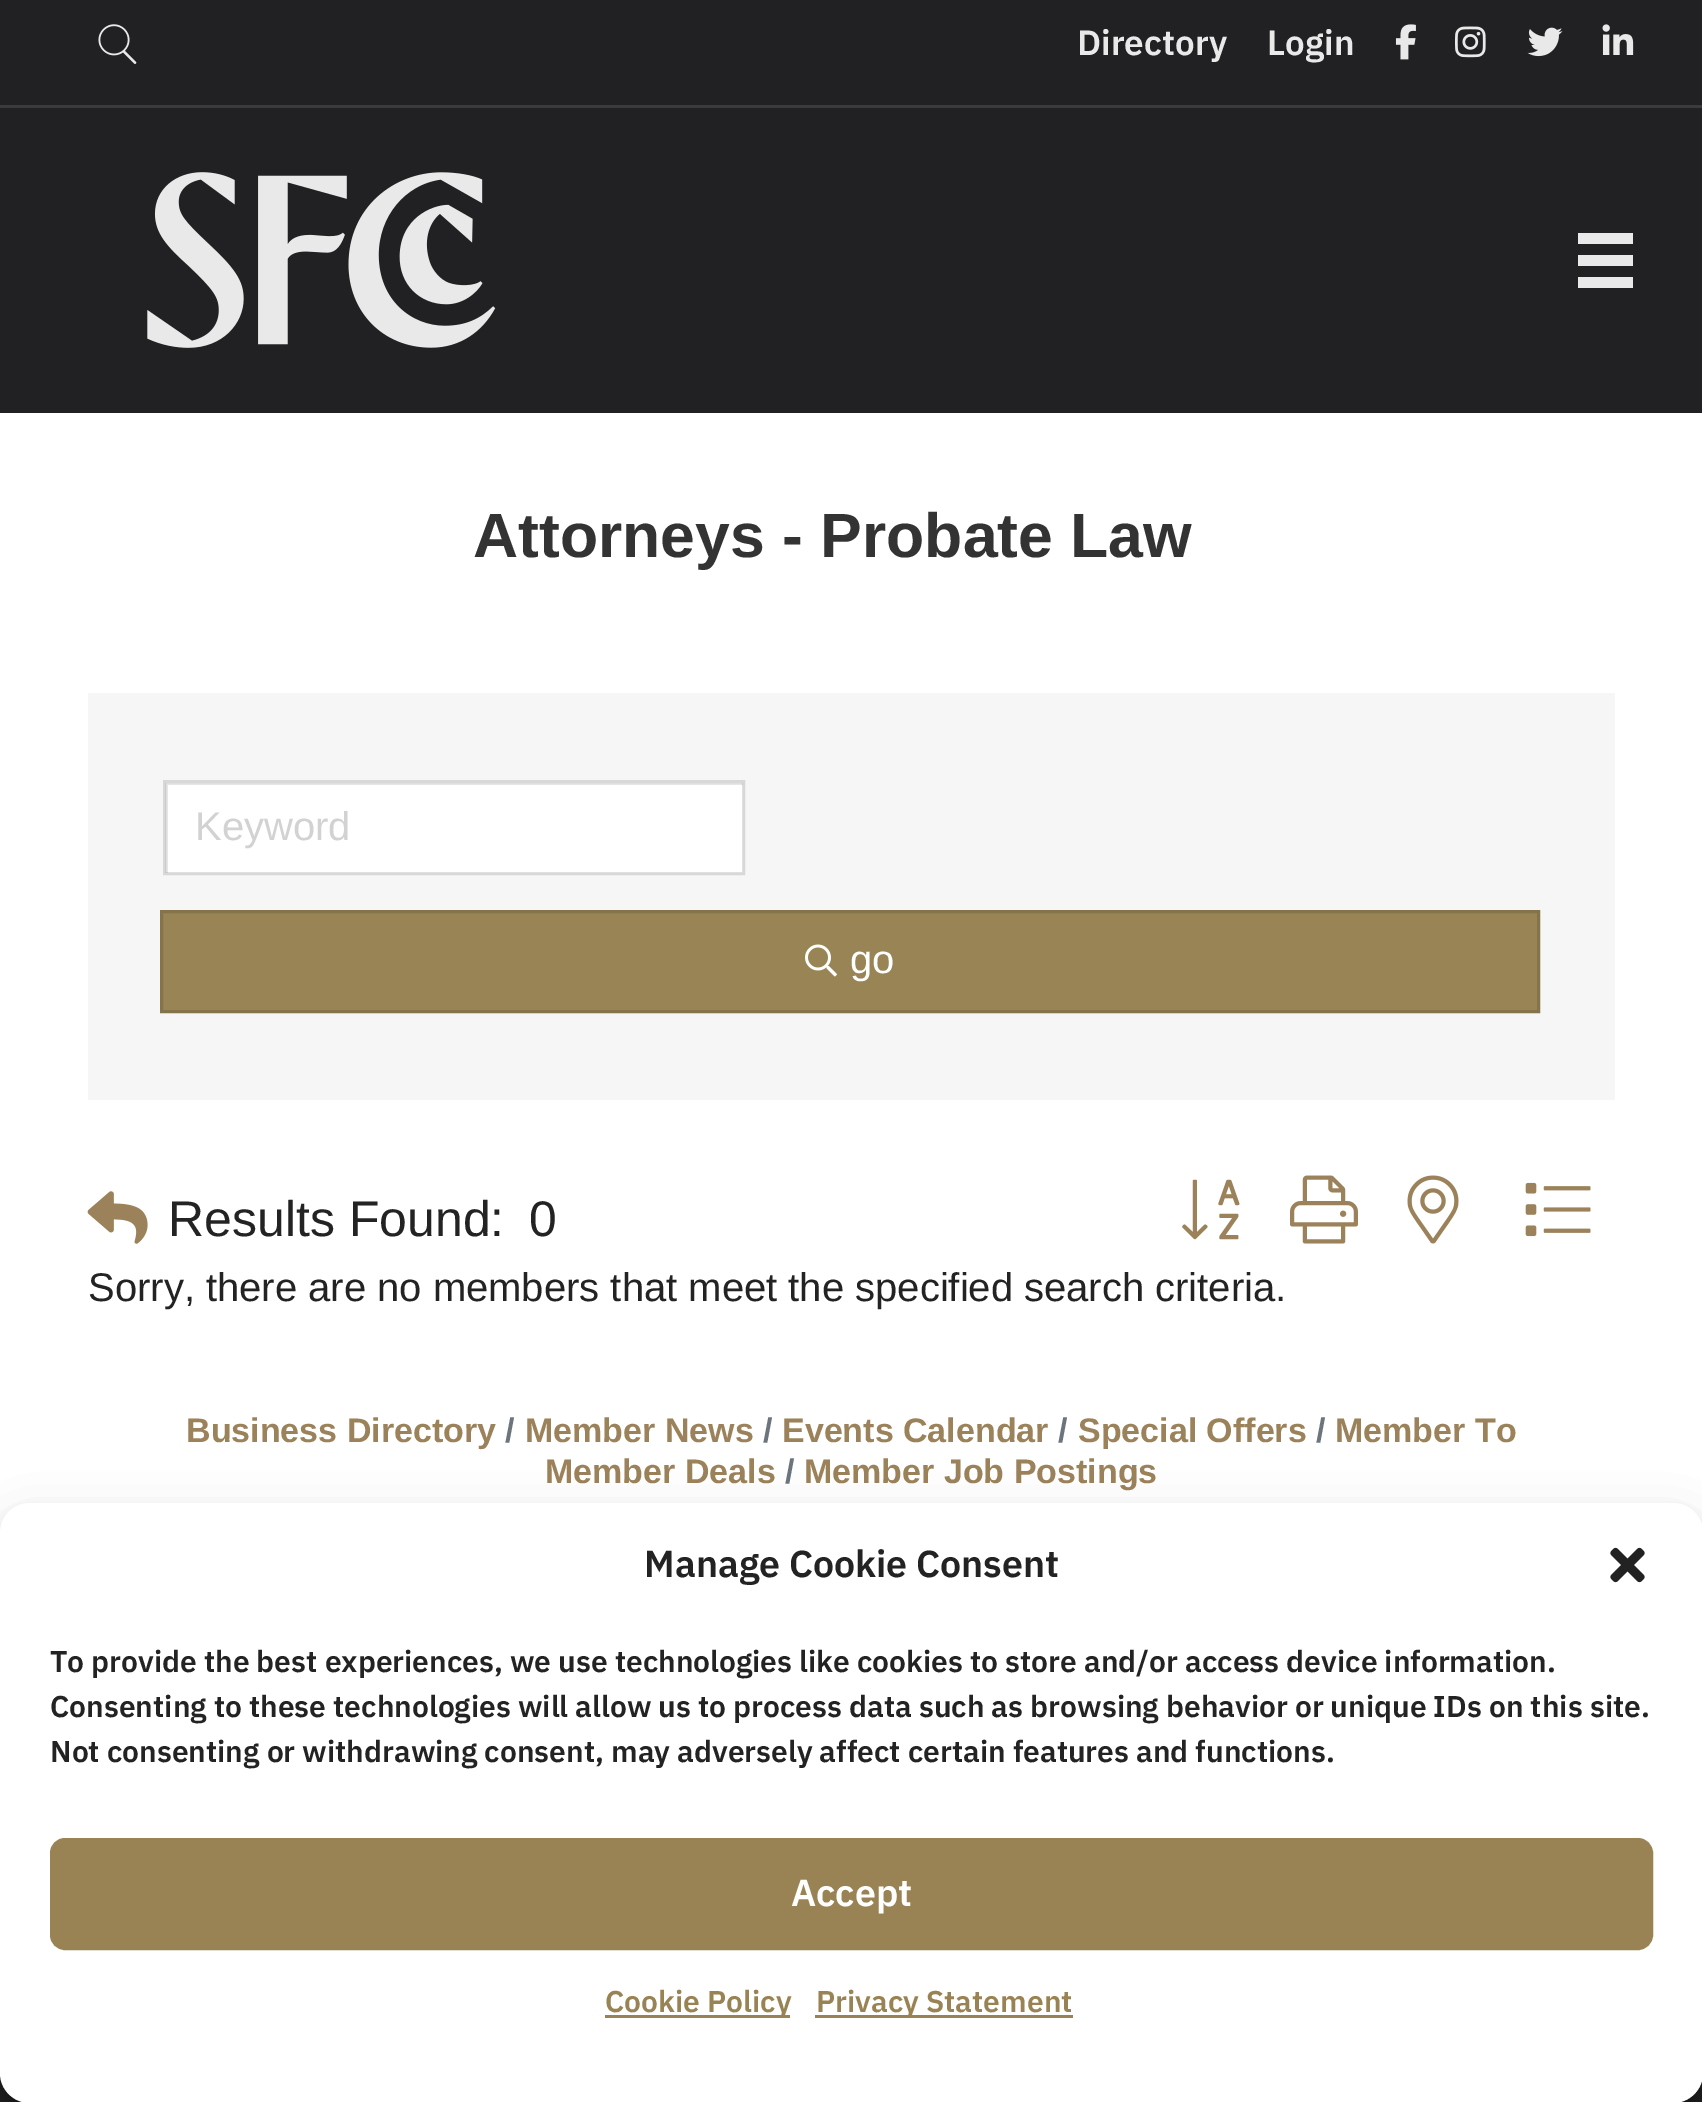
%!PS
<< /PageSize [1702 2102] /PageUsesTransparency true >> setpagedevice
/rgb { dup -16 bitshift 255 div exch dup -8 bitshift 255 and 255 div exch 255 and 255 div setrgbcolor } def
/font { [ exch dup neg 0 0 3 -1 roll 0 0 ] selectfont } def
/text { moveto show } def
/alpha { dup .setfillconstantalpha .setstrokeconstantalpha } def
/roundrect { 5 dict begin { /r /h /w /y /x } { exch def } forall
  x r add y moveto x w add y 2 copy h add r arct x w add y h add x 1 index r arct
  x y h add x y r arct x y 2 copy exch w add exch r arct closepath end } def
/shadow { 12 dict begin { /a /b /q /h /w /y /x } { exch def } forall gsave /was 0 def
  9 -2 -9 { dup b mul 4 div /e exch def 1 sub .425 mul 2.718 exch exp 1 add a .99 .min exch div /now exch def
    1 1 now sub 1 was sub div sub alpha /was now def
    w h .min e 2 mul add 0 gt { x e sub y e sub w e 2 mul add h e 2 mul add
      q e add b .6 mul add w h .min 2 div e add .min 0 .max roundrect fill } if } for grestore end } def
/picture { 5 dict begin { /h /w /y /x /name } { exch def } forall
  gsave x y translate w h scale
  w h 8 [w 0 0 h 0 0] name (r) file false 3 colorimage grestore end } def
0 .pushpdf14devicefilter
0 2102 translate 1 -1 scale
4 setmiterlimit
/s1 { /IBMPlexSans-SemiBold 35 font 16#E9E9E9 rgb } def
/s2 { /LiberationSans-Bold 62.5 font 16#333333 rgb } def
/s3 { /LiberationSans-Regular 40 font 16#D2D2D2 rgb } def
/s4 { /LiberationSans-Regular 40 font 16#FFFFFF rgb } def
/s5 { /LiberationSans-Regular 50 font 16#232323 rgb } def
/s6 { /LiberationSans-Regular 40 font 16#232323 rgb } def
/s7 { /LiberationSans-Bold 34 font 16#9B825A rgb } def
/s8 { /LiberationSans-Bold 34 font 16#6C757D rgb } def
/s9 { /IBMPlexSans-SemiBold 37.5 font 16#232323 rgb } def
/s10 { /IBMPlexSans-SemiBold 30 font 16#232323 rgb } def
/s11 { /IBMPlexSans-SemiBold 37.5 font 16#FFFFFF rgb } def
/s12 { /IBMPlexSans-SemiBold 30 font 16#998354 rgb } def
16#FFFFFF rgb
0 0 1702 2102 rectfill
16#212123 rgb
0 0 1702 105 rectfill
16#3B3B3D rgb
0 105 1702 3 rectfill
(pic1.raw) 98 24 39 40 picture
s1
(Directory) 1077 55 text
(Login) 1267 55 text
(pic2.raw) 1395 24 21 36 picture
(pic3.raw) 1455 26 31 32 picture
(pic4.raw) 1527 27 36 30 picture
(pic5.raw) 1602 24 32 31 picture
16#212123 rgb
0 108 1702 305 rectfill
(pic6.raw) 147 172 349 176 picture
16#E9E9E9 rgb
1578 233 55 11 rectfill
1578 255 55 11 rectfill
1578 277 55 11 rectfill
s2
(Attorneys - Probate Law) 473 557 text
16#F6F6F6 rgb
88 693 1527 407 rectfill
16#FFFFFF rgb
168 785 575 88 rectfill
gsave
165 783 578 90 rectclip
16#E6E6E6 rgb
-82 535 moveto 990 535 lineto 990 1120 lineto -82 1120 lineto closepath 168 785 moveto 745 785 lineto 745 875 lineto 168 875 lineto closepath eofill
grestore
0.12 alpha
16#000000 rgb
3 setlinewidth
164.5 781.5 579 92 rectstroke
1 alpha
s3
(Keyword) 195 840 text
16#988454 rgb
161.5 911.5 moveto 1538.5 911.5 lineto 1538.5 1011.5 lineto 161.5 1011.5 lineto closepath gsave fill grestore
16#85744A rgb
stroke
(pic7.raw) 805 944 32 33 picture
s4
(go) 850 973 text
(pic8.raw) 87 1191 61 53 picture
s5
(Results Found:) 168 1236 text
(0) 529 1236 text
(pic9.raw) 1182 1179 58 61 picture
(pic10.raw) 1290 1175 68 69 picture
(pic11.raw) 1407 1175 52 69 picture
(pic12.raw) 1525 1182 66 55 picture
s6
(Sorry, there are no members that meet the specified search criteria.) 88 1301 text
s7
(Business Directory) 186 1442 text
s8
(/) 505 1442 text
s7
(Member News) 525 1442 text
s8
(/) 1316 1442 text
s7
(Member To) 1335 1442 text
(Member Deals) 545 1483 text
s8
(/) 763 1442 text
s7
(Events Calendar) 782 1442 text
s8
(/) 1058 1442 text
s7
(Special Offers) 1078 1442 text
s8
(/) 785 1483 text
s7
(Member Job Postings) 804 1483 text
16#212123 rgb
0 2073 1702 29 rectfill
16#000000 rgb
0 1518 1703 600 30 7.5 0.23 shadow
0 1528 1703 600 30 25 0.19 shadow
16#FFFFFF rgb
0 1503 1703 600 30 roundrect fill
s9
(Manage Cookie Consent) 644 1577 text
(pic13.raw) 1610 1547 35 36 picture
s10
(To provide the best experiences, we use technologies like cookies to store and/or access device information.) 50 1672 text
(Consenting to these technologies will allow us to process data such as browsing behavior or unique IDs on this site.) 50 1717 text
(Not consenting or withdrawing consent, may adversely affect certain features and functions.) 50 1762 text
16#998354 rgb
51.5 1839.5 1600 109 13.5 roundrect gsave fill grestore
stroke
s11
(Accept) 791 1906 text
16#998354 rgb
605 2015 185 3 rectfill
s12
(Cookie Policy) 605 2012 text
815 2015 258 3 rectfill
(Privacy Statement) 816 2012 text
.poppdf14devicefilter showpage
